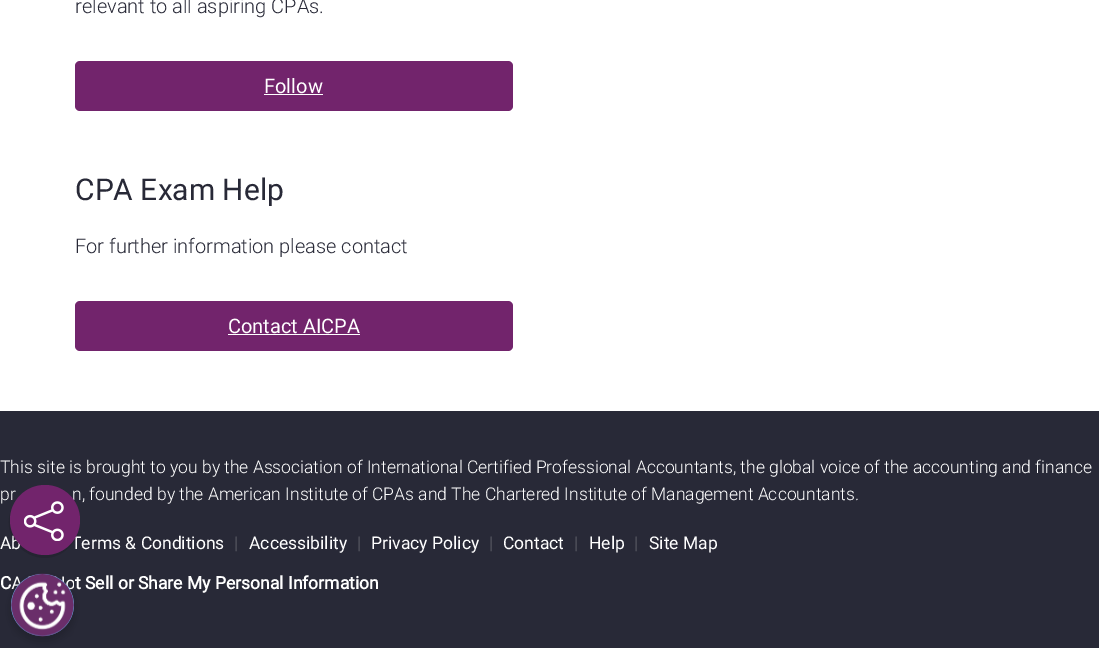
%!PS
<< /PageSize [1099 648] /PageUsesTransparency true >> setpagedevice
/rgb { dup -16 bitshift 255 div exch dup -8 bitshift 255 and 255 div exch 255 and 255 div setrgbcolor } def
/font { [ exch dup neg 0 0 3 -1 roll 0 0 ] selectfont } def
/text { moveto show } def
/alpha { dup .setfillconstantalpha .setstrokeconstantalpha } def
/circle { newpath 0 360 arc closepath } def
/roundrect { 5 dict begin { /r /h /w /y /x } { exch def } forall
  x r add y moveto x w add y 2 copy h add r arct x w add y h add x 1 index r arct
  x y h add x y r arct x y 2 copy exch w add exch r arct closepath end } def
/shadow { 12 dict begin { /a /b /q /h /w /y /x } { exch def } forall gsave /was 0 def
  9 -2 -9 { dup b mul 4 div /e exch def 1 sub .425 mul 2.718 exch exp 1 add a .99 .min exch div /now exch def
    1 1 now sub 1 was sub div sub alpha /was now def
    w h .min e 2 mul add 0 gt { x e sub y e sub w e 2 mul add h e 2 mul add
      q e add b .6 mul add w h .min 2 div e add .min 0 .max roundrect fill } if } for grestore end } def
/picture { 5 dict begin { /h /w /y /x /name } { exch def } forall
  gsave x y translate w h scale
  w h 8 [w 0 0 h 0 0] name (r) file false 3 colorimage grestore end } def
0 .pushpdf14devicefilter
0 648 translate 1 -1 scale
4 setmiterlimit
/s1 { /Roboto-Light 20 font 16#282937 rgb } def
/s2 { /Roboto-Regular 20 font 16#FFFFFF rgb } def
/s3 { /Roboto-Regular 30 font 16#282937 rgb } def
/s4 { /Roboto-Light 17.5 font 16#FFFFFF rgb } def
/s5 { /Roboto-Regular 17.5 font 16#FFFFFF rgb } def
/s6 { /Roboto-Regular 17.5 font 16#53545F rgb } def
/s7 { /Roboto-Bold 17.5 font 16#FFFFFF rgb } def
16#FFFFFF rgb
0 0 1099 648 rectfill
s1
(relevant to all aspiring CPAs.) 75 13 text
16#72246C rgb
75 61 438 50 5 roundrect fill
s2
(Follow) 264 93 text
264 94 59 1 rectfill
s3
(CPA Exam Help) 75 200 text
s1
(For further information please contact) 75 253 text
16#72246C rgb
75 301 438 50 5 roundrect fill
s2
(Contact AICPA) 228 333 text
228 334 132 1 rectfill
16#282937 rgb
0 411 1099 237 rectfill
s4
(This site is brought to you by the Association of International Certified Professional Accountants, the global voice of the accounting and finance) 0 473 text
(pr) 0 500 text
(n, founded by the American Institute of CPAs and The Chartered Institute of Management Accountants.) 72 500 text
s5
(Ab) 0 549 text
(Terms & Conditions) 71 549 text
s6
(|) 234 549 text
s5
(Accessibility) 249 549 text
s6
(|) 357 549 text
s5
(Privacy Policy) 371 549 text
s6
(|) 489 549 text
s5
(Contact) 503 549 text
s6
(|) 574 549 text
s5
(Help) 589 549 text
s6
(|) 634 549 text
s5
(Site Map) 649 549 text
s7
(C) 0 589 text
(t Sell or Share My Personal Information) 75 589 text
0.11 alpha
16#000000 rgb
78 533 moveto 75 539 71 545 65 549 curveto 38 568 3 541 11 510 curveto -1 542 37 572 65 551 curveto 71 546 76 540 78 533 curveto closepath fill
1 alpha
16#72246C rgb
45 520 35 circle fill
(pic1.raw) 24 501 40 40 picture
16#000000 rgb
11 579 63 62 31 5 0.2 shadow
16#6AAAE4 rgb
11 574 63 62 31 roundrect fill
(pic2.raw) 11 573 63 64 picture
.poppdf14devicefilter showpage
